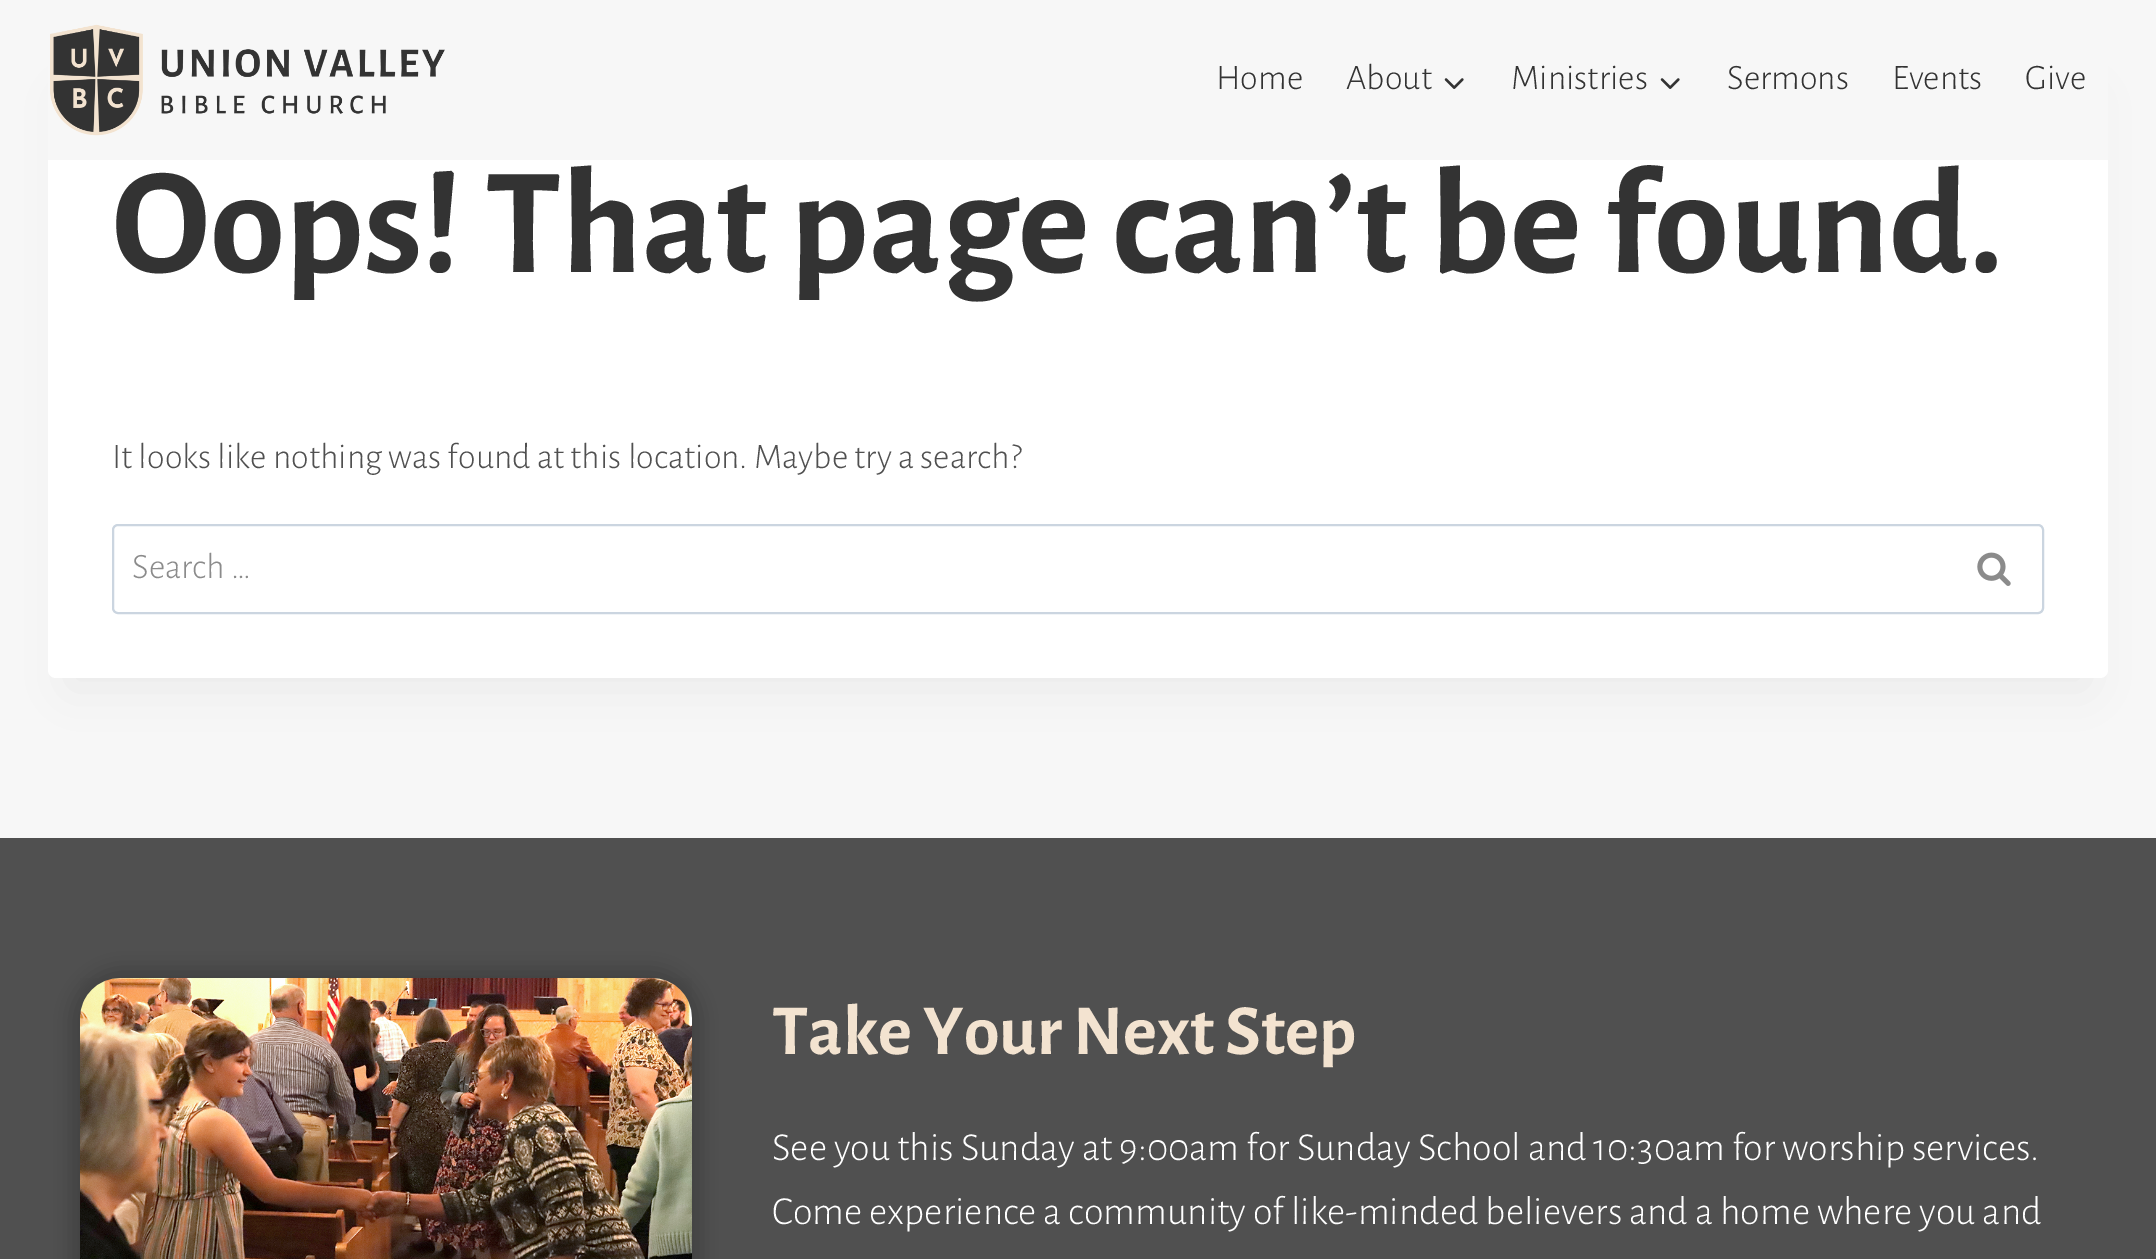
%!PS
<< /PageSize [2156 1259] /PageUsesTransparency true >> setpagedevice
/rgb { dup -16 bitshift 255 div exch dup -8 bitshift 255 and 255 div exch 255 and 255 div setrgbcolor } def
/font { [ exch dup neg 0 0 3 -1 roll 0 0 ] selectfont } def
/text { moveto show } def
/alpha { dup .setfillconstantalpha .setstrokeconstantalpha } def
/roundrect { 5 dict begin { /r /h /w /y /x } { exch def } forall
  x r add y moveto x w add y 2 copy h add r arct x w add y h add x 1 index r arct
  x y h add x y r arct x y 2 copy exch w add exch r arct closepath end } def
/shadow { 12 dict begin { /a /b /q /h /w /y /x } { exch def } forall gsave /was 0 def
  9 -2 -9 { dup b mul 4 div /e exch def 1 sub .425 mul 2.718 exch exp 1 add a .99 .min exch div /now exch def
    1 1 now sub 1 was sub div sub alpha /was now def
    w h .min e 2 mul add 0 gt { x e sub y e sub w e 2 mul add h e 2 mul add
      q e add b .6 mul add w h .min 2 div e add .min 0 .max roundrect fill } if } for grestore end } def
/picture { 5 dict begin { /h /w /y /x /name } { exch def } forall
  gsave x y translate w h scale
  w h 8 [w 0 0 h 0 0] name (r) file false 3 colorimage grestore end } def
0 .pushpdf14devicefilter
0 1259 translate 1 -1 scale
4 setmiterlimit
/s1 { /AlegreyaSans-Light 36 font 16#333333 rgb } def
/s2 { /AlegreyaSans-Bold 152 font 16#333333 rgb } def
/s3 { /AlegreyaSans-Light 36 font 16#505050 rgb } def
/s4 { /AlegreyaSans-Light 36 font 16#8B8B8B rgb } def
/s5 { /AlegreyaSans-Bold 72 font 16#F3E3D0 rgb } def
/s6 { /AlegreyaSans-Light 40 font 16#FFFFFF rgb } def
16#F7F7F7 rgb
0 0 2156 1259 rectfill
16#000000 rgb
68 98 2020 590 0 25 0.05 shadow
16#FFFFFF rgb
48 48 2060 630 8 roundrect fill
16#F7F7F7 rgb
48 48 2060 112 rectfill
(pic1.raw) 50 24 395 112 picture
s1
(Home) 1216 89 text
(About) 1346 89 text
(pic2.raw) 1444 78 20 11 picture
(Ministries) 1511 89 text
(pic2.raw) 1660 78 20 11 picture
(Sermons) 1727 89 text
(Events) 1892 89 text
(Give) 2025 89 text
s2
(Oops! That page can’t be found.) 112 272 text
s3
(It looks like nothing was found at this location. Maybe try a search?) 112 468 text
16#CBD5E0 rgb
2 setlinewidth
113 525 1930 88 5 roundrect stroke
s4
(Search …) 132 578 text
(pic3.raw) 1977 552 34 34 picture
16#505050 rgb
0 838 2156 421 rectfill
16#333333 rgb
70 968 632 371 50 10 0.5 shadow
(pic4.raw) 80 978 612 281 picture
s5
(Take Your Next Step) 772 1054 text
s6
(See you this Sunday at 9:00am for Sunday School and 10:30am for worship services.) 772 1160 text
(Come experience a community of like-minded believers and a home where you and) 772 1224 text
.poppdf14devicefilter showpage
